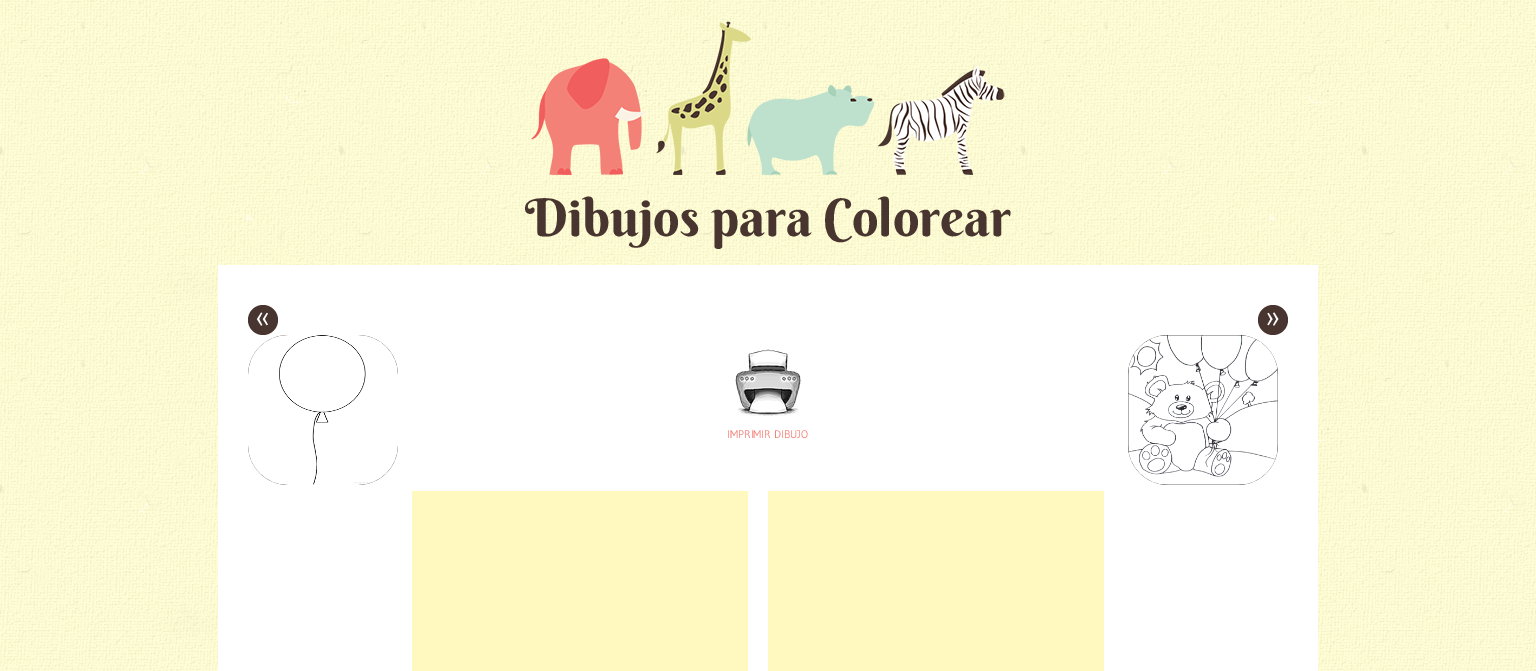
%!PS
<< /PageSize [1536 671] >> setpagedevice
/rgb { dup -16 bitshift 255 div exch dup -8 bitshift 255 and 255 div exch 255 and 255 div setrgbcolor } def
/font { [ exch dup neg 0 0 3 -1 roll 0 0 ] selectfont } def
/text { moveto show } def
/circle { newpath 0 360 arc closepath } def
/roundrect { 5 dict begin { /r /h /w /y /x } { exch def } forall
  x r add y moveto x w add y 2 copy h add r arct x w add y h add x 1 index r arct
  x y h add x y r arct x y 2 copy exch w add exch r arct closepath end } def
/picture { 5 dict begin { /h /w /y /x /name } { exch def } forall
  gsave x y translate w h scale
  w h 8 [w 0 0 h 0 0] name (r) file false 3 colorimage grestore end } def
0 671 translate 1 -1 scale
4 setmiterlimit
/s1 { /BerkshireSwash-Regular 52 font 16#49352F rgb } def
/s2 { /Gudea-Regular 30 font 16#FFFFFF rgb } def
/s3 { /Gudea-Regular 11 font 16#F48278 rgb } def
16#FFFFFF rgb
0 0 1536 671 rectfill
(pic1.raw) 0 0 1536 671 picture
(pic2.raw) 531 21 474 154 picture
s1
(Dibujos para Colorear) 525 236 text
16#FFFFFF rgb
218 265 1100 406 rectfill
16#49352F rgb
263 320 15 circle fill
s2
(«) 255 328 text
16#49352F rgb
248 335 150 150 40 roundrect fill
(pic3.raw) 248 335 150 150 picture
1273 320 15 circle fill
s2
(») 1265 328 text
16#49352F rgb
1128 335 150 150 40 roundrect fill
(pic4.raw) 1128 335 150 150 picture
(pic5.raw) 735 349 66 67 picture
s3
(IMPRIMIR DIBUJO) 727 438 text
16#FFF9C0 rgb
412 491 336 180 rectfill
768 491 336 180 rectfill
showpage
